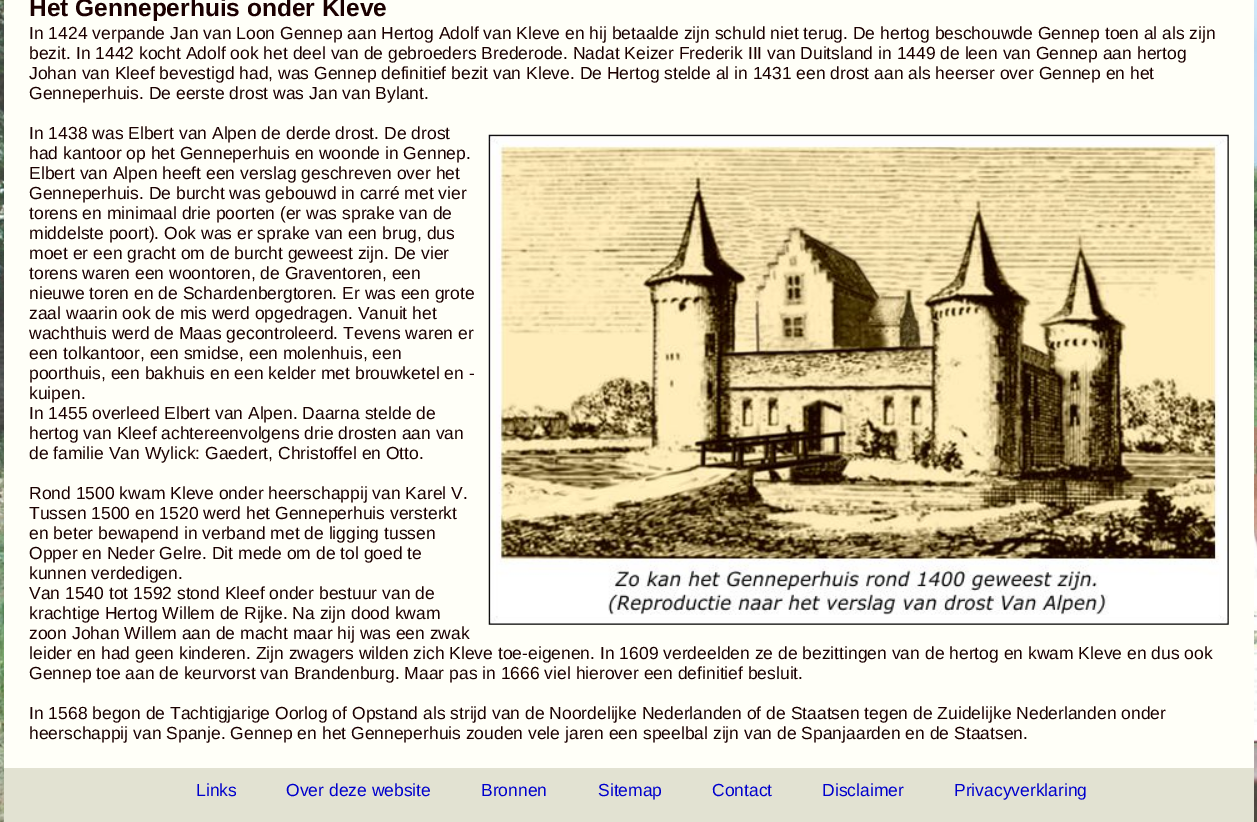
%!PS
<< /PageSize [1257 822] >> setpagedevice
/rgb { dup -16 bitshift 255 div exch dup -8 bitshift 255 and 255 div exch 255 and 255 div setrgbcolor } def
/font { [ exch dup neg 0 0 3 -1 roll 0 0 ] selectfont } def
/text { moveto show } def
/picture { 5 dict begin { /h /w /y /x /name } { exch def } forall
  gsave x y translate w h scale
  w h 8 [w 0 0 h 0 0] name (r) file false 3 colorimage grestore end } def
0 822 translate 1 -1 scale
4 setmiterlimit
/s1 { /LiberationSans-Bold 24.5 font 16#1B0000 rgb } def
/s2 { /LiberationSans-Regular 17.5 font 16#1B0000 rgb } def
/s3 { /LiberationSans-Regular 17.5 font 16#0000CD rgb } def
16#FFFFFF rgb
0 0 1257 822 rectfill
(pic1.raw) 0 0 1257 822 picture
16#FFFFF8 rgb
4 0 1250 768 rectfill
s1
(Het Genneperhuis onder Kleve) 29 16 text
s2
(In 1424 verpande Jan van Loon Gennep aan Hertog Adolf van Kleve en hij betaalde zijn schuld niet terug. De hertog beschouwde Gennep toen al als zijn) 29 39 text
(bezit. In 1442 kocht Adolf ook het deel van de gebroeders Brederode. Nadat Keizer Frederik III van Duitsland in 1449 de leen van Gennep aan hertog) 29 59 text
(Johan van Kleef bevestigd had, was Gennep definitief bezit van Kleve. De Hertog stelde al in 1431 een drost aan als heerser over Gennep en het) 29 79 text
(Genneperhuis. De eerste drost was Jan van Bylant.) 29 99 text
(In 1438 was Elbert van Alpen de derde drost. De drost) 29 139 text
(pic2.raw) 488 134 741 491 picture
(had kantoor op het Genneperhuis en woonde in Gennep.) 29 159 text
(Elbert van Alpen heeft een verslag geschreven over het) 29 179 text
(Genneperhuis. De burcht was gebouwd in carré met vier) 29 199 text
(torens en minimaal drie poorten \(er was sprake van de) 29 219 text
(middelste poort\). Ook was er sprake van een brug, dus) 29 239 text
(moet er een gracht om de burcht geweest zijn. De vier) 29 259 text
(torens waren een woontoren, de Graventoren, een) 29 279 text
(nieuwe toren en de Schardenbergtoren. Er was een grote) 29 299 text
(zaal waarin ook de mis werd opgedragen. Vanuit het) 29 319 text
(wachthuis werd de Maas gecontroleerd. Tevens waren er) 29 339 text
(een tolkantoor, een smidse, een molenhuis, een) 29 359 text
(poorthuis, een bakhuis en een kelder met brouwketel en -) 29 379 text
(kuipen.) 29 399 text
(In 1455 overleed Elbert van Alpen. Daarna stelde de) 29 419 text
(hertog van Kleef achtereenvolgens drie drosten aan van) 29 439 text
(de familie Van Wylick: Gaedert, Christoffel en Otto.) 29 459 text
(Rond 1500 kwam Kleve onder heerschappij van Karel V.) 29 499 text
(Tussen 1500 en 1520 werd het Genneperhuis versterkt) 29 519 text
(en beter bewapend in verband met de ligging tussen) 29 539 text
(Opper en Neder Gelre. Dit mede om de tol goed te) 29 559 text
(kunnen verdedigen.) 29 579 text
(Van 1540 tot 1592 stond Kleef onder bestuur van de) 29 599 text
(krachtige Hertog Willem de Rijke. Na zijn dood kwam) 29 619 text
(zoon Johan Willem aan de macht maar hij was een zwak) 29 639 text
(leider en had geen kinderen. Zijn zwagers wilden zich Kleve toe-eigenen. In 1609 verdeelden ze de bezittingen van de hertog en kwam Kleve en dus ook) 29 659 text
(Gennep toe aan de keurvorst van Brandenburg. Maar pas in 1666 viel hierover een definitief besluit.) 29 679 text
(In 1568 begon de Tachtigjarige Oorlog of Opstand als strijd van de Noordelijke Nederlanden of de Staatsen tegen de Zuidelijke Nederlanden onder) 29 719 text
(heerschappij van Spanje. Gennep en het Genneperhuis zouden vele jaren een speelbal zijn van de Spanjaarden en de Staatsen.) 29 739 text
16#E2E2D2 rgb
4 768 1250 54 rectfill
s3
(Links) 196 796 text
(Over deze website) 286 796 text
(Bronnen) 481 796 text
(Sitemap) 598 796 text
(Contact) 712 796 text
(Disclaimer) 822 796 text
(Privacyverklaring) 954 796 text
showpage
